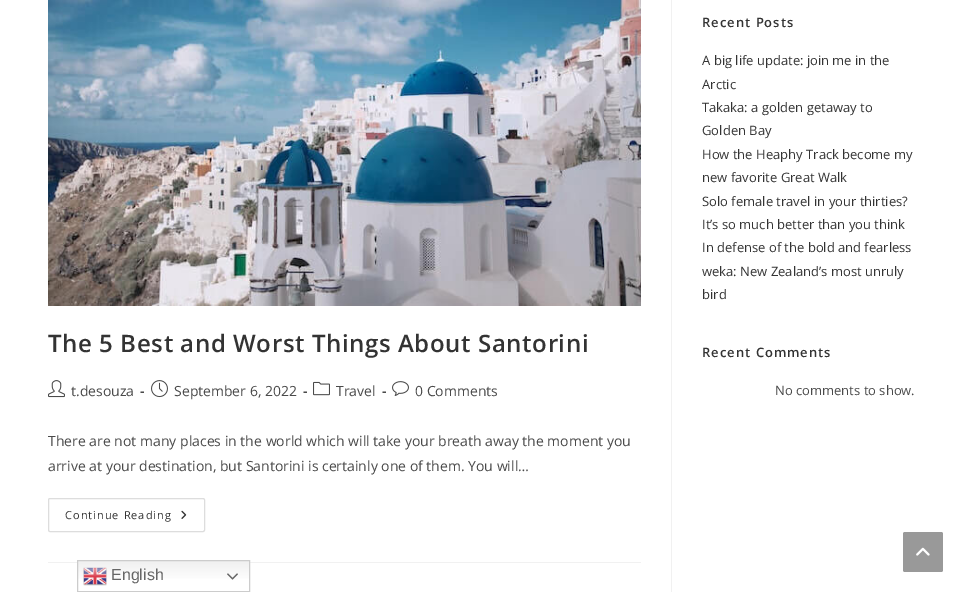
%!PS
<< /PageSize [963 592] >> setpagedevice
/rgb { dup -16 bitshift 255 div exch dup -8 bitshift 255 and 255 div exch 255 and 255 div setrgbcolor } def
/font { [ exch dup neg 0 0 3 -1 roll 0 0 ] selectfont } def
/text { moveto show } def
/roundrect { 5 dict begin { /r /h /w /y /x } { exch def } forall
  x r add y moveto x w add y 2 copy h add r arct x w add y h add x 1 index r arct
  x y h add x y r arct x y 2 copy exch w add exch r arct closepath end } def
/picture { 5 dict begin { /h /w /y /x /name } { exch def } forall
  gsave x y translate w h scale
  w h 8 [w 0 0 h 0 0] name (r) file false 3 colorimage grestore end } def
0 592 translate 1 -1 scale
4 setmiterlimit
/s1 { /OpenSans-Regular 13 font 16#333333 rgb } def
/s2 { /OpenSans-Regular 13 font 16#4A4A4A rgb } def
/s3 { /OpenSans-Regular 14 font 16#4A4A4A rgb } def
/s4 { /OpenSans-Bold 14 font 16#4A4A4A rgb } def
/s5 { /LiberationSans-Regular 16 font 16#666666 rgb } def
16#FFFFFF rgb
0 0 963 592 rectfill
/OpenSans-SemiBold 13 font
16#333333 rgb
702 27 moveto 1 0 (Recent Posts) ashow
s1
(A big life update: join me in the) 702 65 text
(Arctic) 702 89 text
(Takaka: a golden getaway to) 702 112 text
(Golden Bay) 702 135 text
(How the Heaphy Track become my) 702 159 text
(new favorite Great Walk) 702 182 text
(Solo female travel in your thirties?) 702 206 text
(It’s so much better than you think) 702 229 text
(In defense of the bold and fearless) 702 252 text
(weka: New Zealand’s most unruly) 702 276 text
(bird) 702 299 text
/OpenSans-SemiBold 13 font
702 357 moveto 1 0 (Recent Comments) ashow
s2
(No comments to show.) 775 395 text
16#F1F1F1 rgb
671 0 1 592 rectfill
48 562 593 1 rectfill
(pic1.raw) 48 0 593 306 picture
/OpenSans-SemiBold 24 font
16#333333 rgb
48 352 moveto 0.6 0 (The 5 Best and Worst Things About Santorini) ashow
(pic2.raw) 48 380 17 18 picture
s3
(t.desouza) 71 396 text
s4
(-) 140 396 text
(pic3.raw) 151 380 17 18 picture
s3
(September 6, 2022) 174 396 text
s4
(-) 303 396 text
(pic4.raw) 313 381 17 15 picture
s3
(Travel) 336 396 text
s4
(-) 382 396 text
(pic5.raw) 392 381 17 15 picture
s3
(0 Comments) 415 396 text
(There are not many places in the world which will take your breath away the moment you) 48 446 text
(arrive at your destination, but Santorini is certainly one of them. You will…) 48 471 text
16#DDDDDD rgb
48.5 498.5 156 33 1.5 roundrect stroke
/OpenSans-Regular 11 font
16#333333 rgb
65 519 moveto 1 0 (Continue Reading) ashow
(pic6.raw) 181 510 6 9 picture
16#999999 rgb
903 532 40 40 2 roundrect fill
(pic7.raw) 916 547 14 9 picture
gsave 78 561 moveto 249 561 lineto 249 579 lineto 78 579 lineto closepath clip newpath
<< /ShadingType 2 /ColorSpace /DeviceRGB /Coords [164 560 164 592] /Extend [true true] /Function << /FunctionType 3 /Domain [0 1] /Functions [<< /FunctionType 2 /Domain [0 1] /C0 [0.937 0.937 0.937] /C1 [1 1 1] /N 1 >> << /FunctionType 2 /Domain [0 1] /C0 [1 1 1] /C1 [1 1 1] /N 1 >>] /Bounds [0.7] /Encode [0 1 0 1] >> >> shfill grestore
16#CCCCCC rgb
77.5 560.5 172 31 rectstroke
(pic8.raw) 83 567 24 19 picture
s5
(English) 111 580 text
(pic9.raw) 227 573 11 7 picture
showpage
